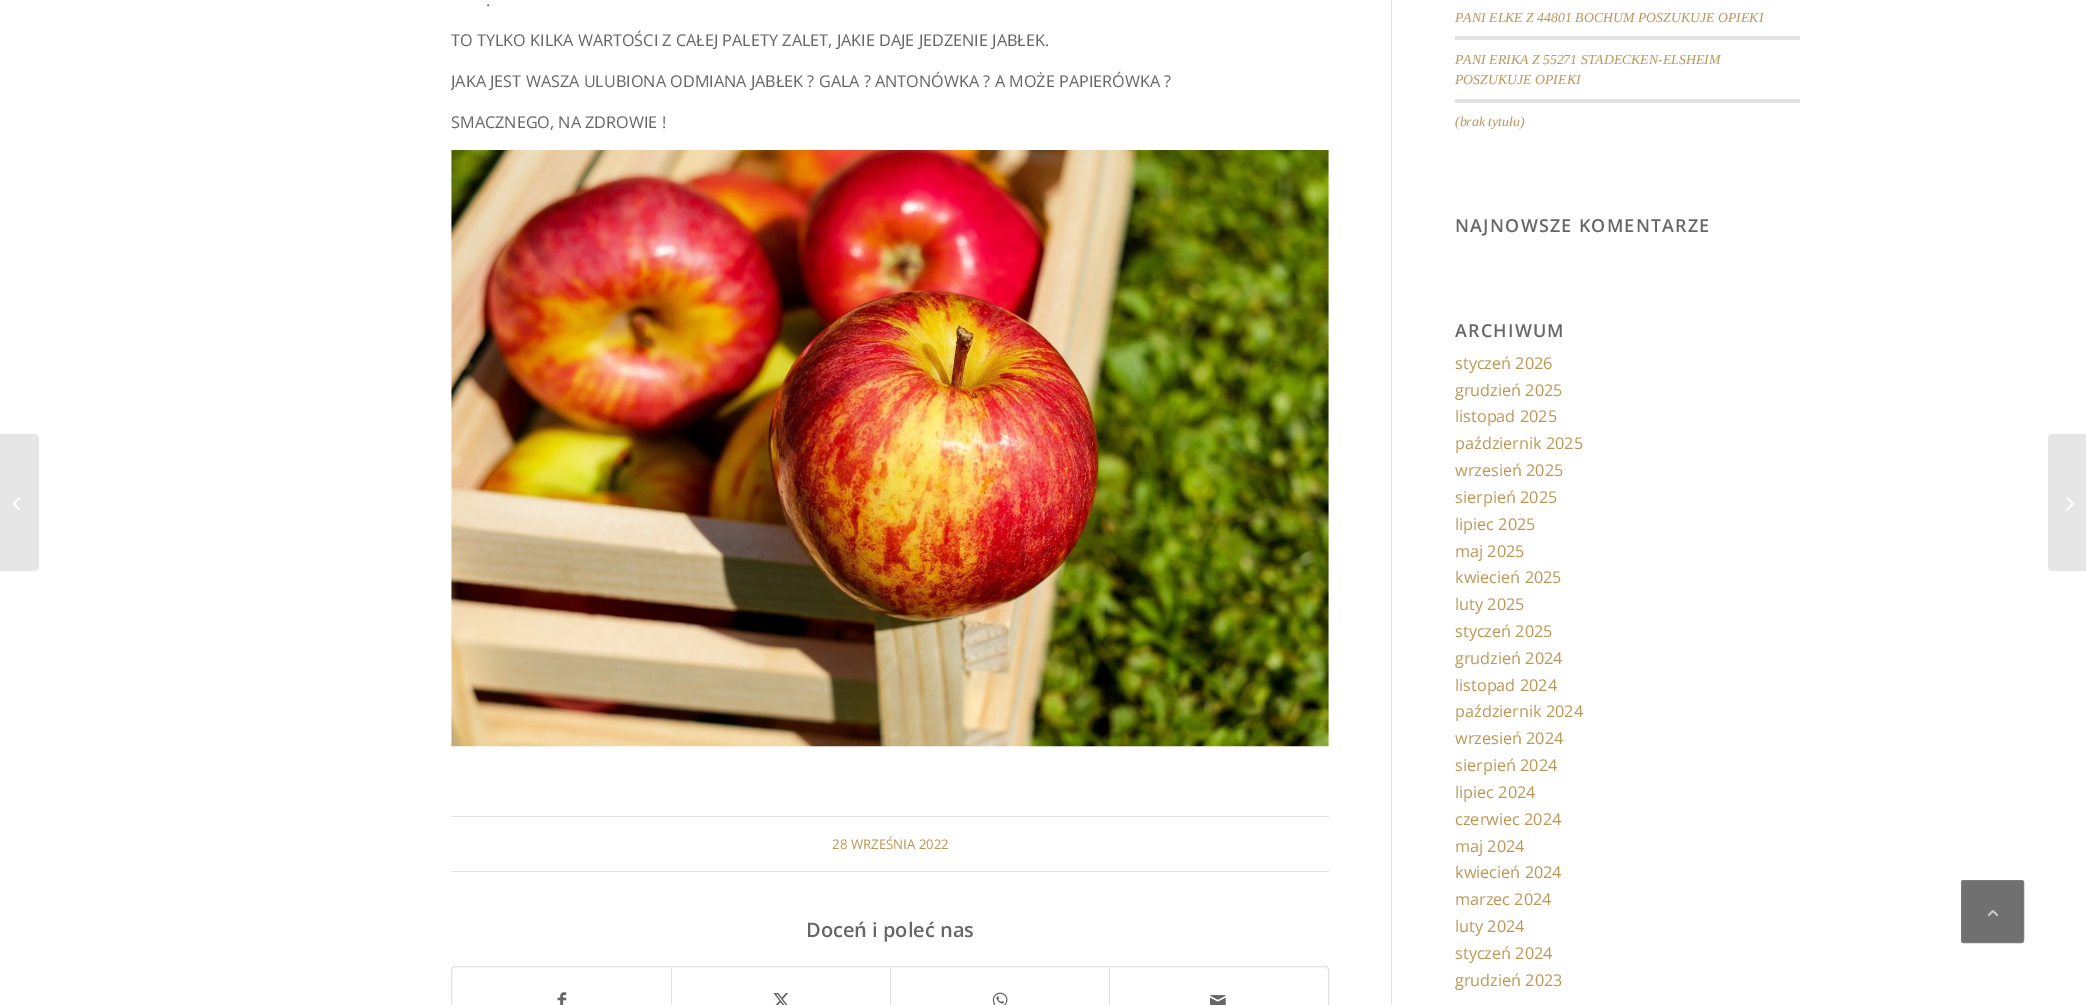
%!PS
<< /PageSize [2086 1005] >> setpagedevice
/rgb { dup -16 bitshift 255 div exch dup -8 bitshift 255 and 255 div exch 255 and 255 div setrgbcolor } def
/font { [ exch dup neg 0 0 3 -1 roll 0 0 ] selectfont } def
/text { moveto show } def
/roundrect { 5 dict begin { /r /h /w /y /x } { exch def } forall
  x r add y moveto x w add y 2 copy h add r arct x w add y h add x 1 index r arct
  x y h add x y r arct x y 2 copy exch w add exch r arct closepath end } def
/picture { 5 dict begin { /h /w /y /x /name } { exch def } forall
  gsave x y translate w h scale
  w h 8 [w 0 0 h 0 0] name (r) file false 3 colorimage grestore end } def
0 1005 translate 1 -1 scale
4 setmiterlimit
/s1 { /OpenSans-Regular 16.25 font 16#666666 rgb } def
/s2 { /OpenSans-Regular 13.25 font 16#BB9755 rgb } def
/s3 { /OpenSans-SemiBold 20 font 16#666666 rgb } def
/s4 { /LiberationSerif-Italic 13.8 font 16#BB9755 rgb } def
/s5 { /OpenSans-Regular 16.25 font 16#BB9755 rgb } def
16#FFFFFF rgb
0 0 2086 1005 rectfill
16#E6E6E6 rgb
0 434 moveto 34 434 lineto 37 434 39 436 39 439 curveto 39 566 lineto 39 569 37 571 34 571 curveto 0 571 lineto closepath fill
(pic1.raw) 13 497 7 14 picture
16#E1E1E1 rgb
1391 0 1 1005 rectfill
s1
(.) 486 6 text
(TO TYLKO KILKA WARTOŚCI Z CAŁEJ PALETY ZALET, JAKIE DAJE JEDZENIE JABŁEK.) 451 46 text
gsave
451 0 940 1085 rectclip
(JAKA JEST WASZA ULUBIONA ODMIANA JABŁEK ? GALA ? ANTONÓWKA ? A MOŻE PAPIERÓWKA ?) 451 87 text
grestore
(SMACZNEGO, NA ZDROWIE !) 451 128 text
(pic2.raw) 451 150 878 597 picture
16#E1E1E1 rgb
451 816 878 1 rectfill
451 871 878 1 rectfill
s2
(28 WRZEŚNIA 2022) 832 849 text
s3
(Doceń i poleć nas) 806 937 text
16#E1E1E1 rgb
451.5 966.5 877 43 3.5 roundrect stroke
(pic3.raw) 557 992 10 13 picture
671 968 1 37 rectfill
(pic4.raw) 773 993 16 12 picture
890 968 1 37 rectfill
(pic5.raw) 992 992 16 13 picture
1109 968 1 37 rectfill
(pic6.raw) 1210 995 16 10 picture
s4
(PANI ELKE Z 44801 BOCHUM POSZUKUJE OPIEKI) 1455 22 text
16#E1E1E1 rgb
1455 36 345 4 rectfill
s4
(PANI ERIKA Z 55271 STADECKEN-ELSHEIM) 1455 64 text
(POSZUKUJE OPIEKI) 1455 84 text
16#E1E1E1 rgb
1455 99 345 4 rectfill
s4
(\(brak tytułu\)) 1455 126 text
/OpenSans-SemiBold 17.9 font
16#666666 rgb
1455 232 moveto 1.25 0 (NAJNOWSZE KOMENTARZE) ashow
1455 337 moveto 1.25 0 (ARCHIWUM) ashow
s5
(styczeń 2026) 1455 369 text
(grudzień 2025) 1455 396 text
(listopad 2025) 1455 422 text
(październik 2025) 1455 449 text
(wrzesień 2025) 1455 476 text
(sierpień 2025) 1455 503 text
(lipiec 2025) 1455 530 text
(maj 2025) 1455 557 text
(kwiecień 2025) 1455 583 text
(luty 2025) 1455 610 text
(styczeń 2025) 1455 637 text
(grudzień 2024) 1455 664 text
(listopad 2024) 1455 691 text
(październik 2024) 1455 717 text
(wrzesień 2024) 1455 744 text
(sierpień 2024) 1455 771 text
(lipiec 2024) 1455 798 text
(czerwiec 2024) 1455 825 text
(maj 2024) 1455 852 text
(kwiecień 2024) 1455 878 text
(marzec 2024) 1455 905 text
(luty 2024) 1455 932 text
(styczeń 2024) 1455 959 text
(grudzień 2023) 1455 986 text
16#E6E6E6 rgb
2053 434 moveto 2086 434 lineto 2086 571 lineto 2053 571 lineto 2050 571 2048 569 2048 566 curveto 2048 439 lineto 2048 436 2050 434 2053 434 curveto closepath fill
(pic7.raw) 2066 497 8 14 picture
16#707070 rgb
1961.5 880.5 62 62 2 roundrect gsave fill grestore
16#7C7C7C rgb
stroke
(pic8.raw) 1988 910 10 7 picture
showpage
